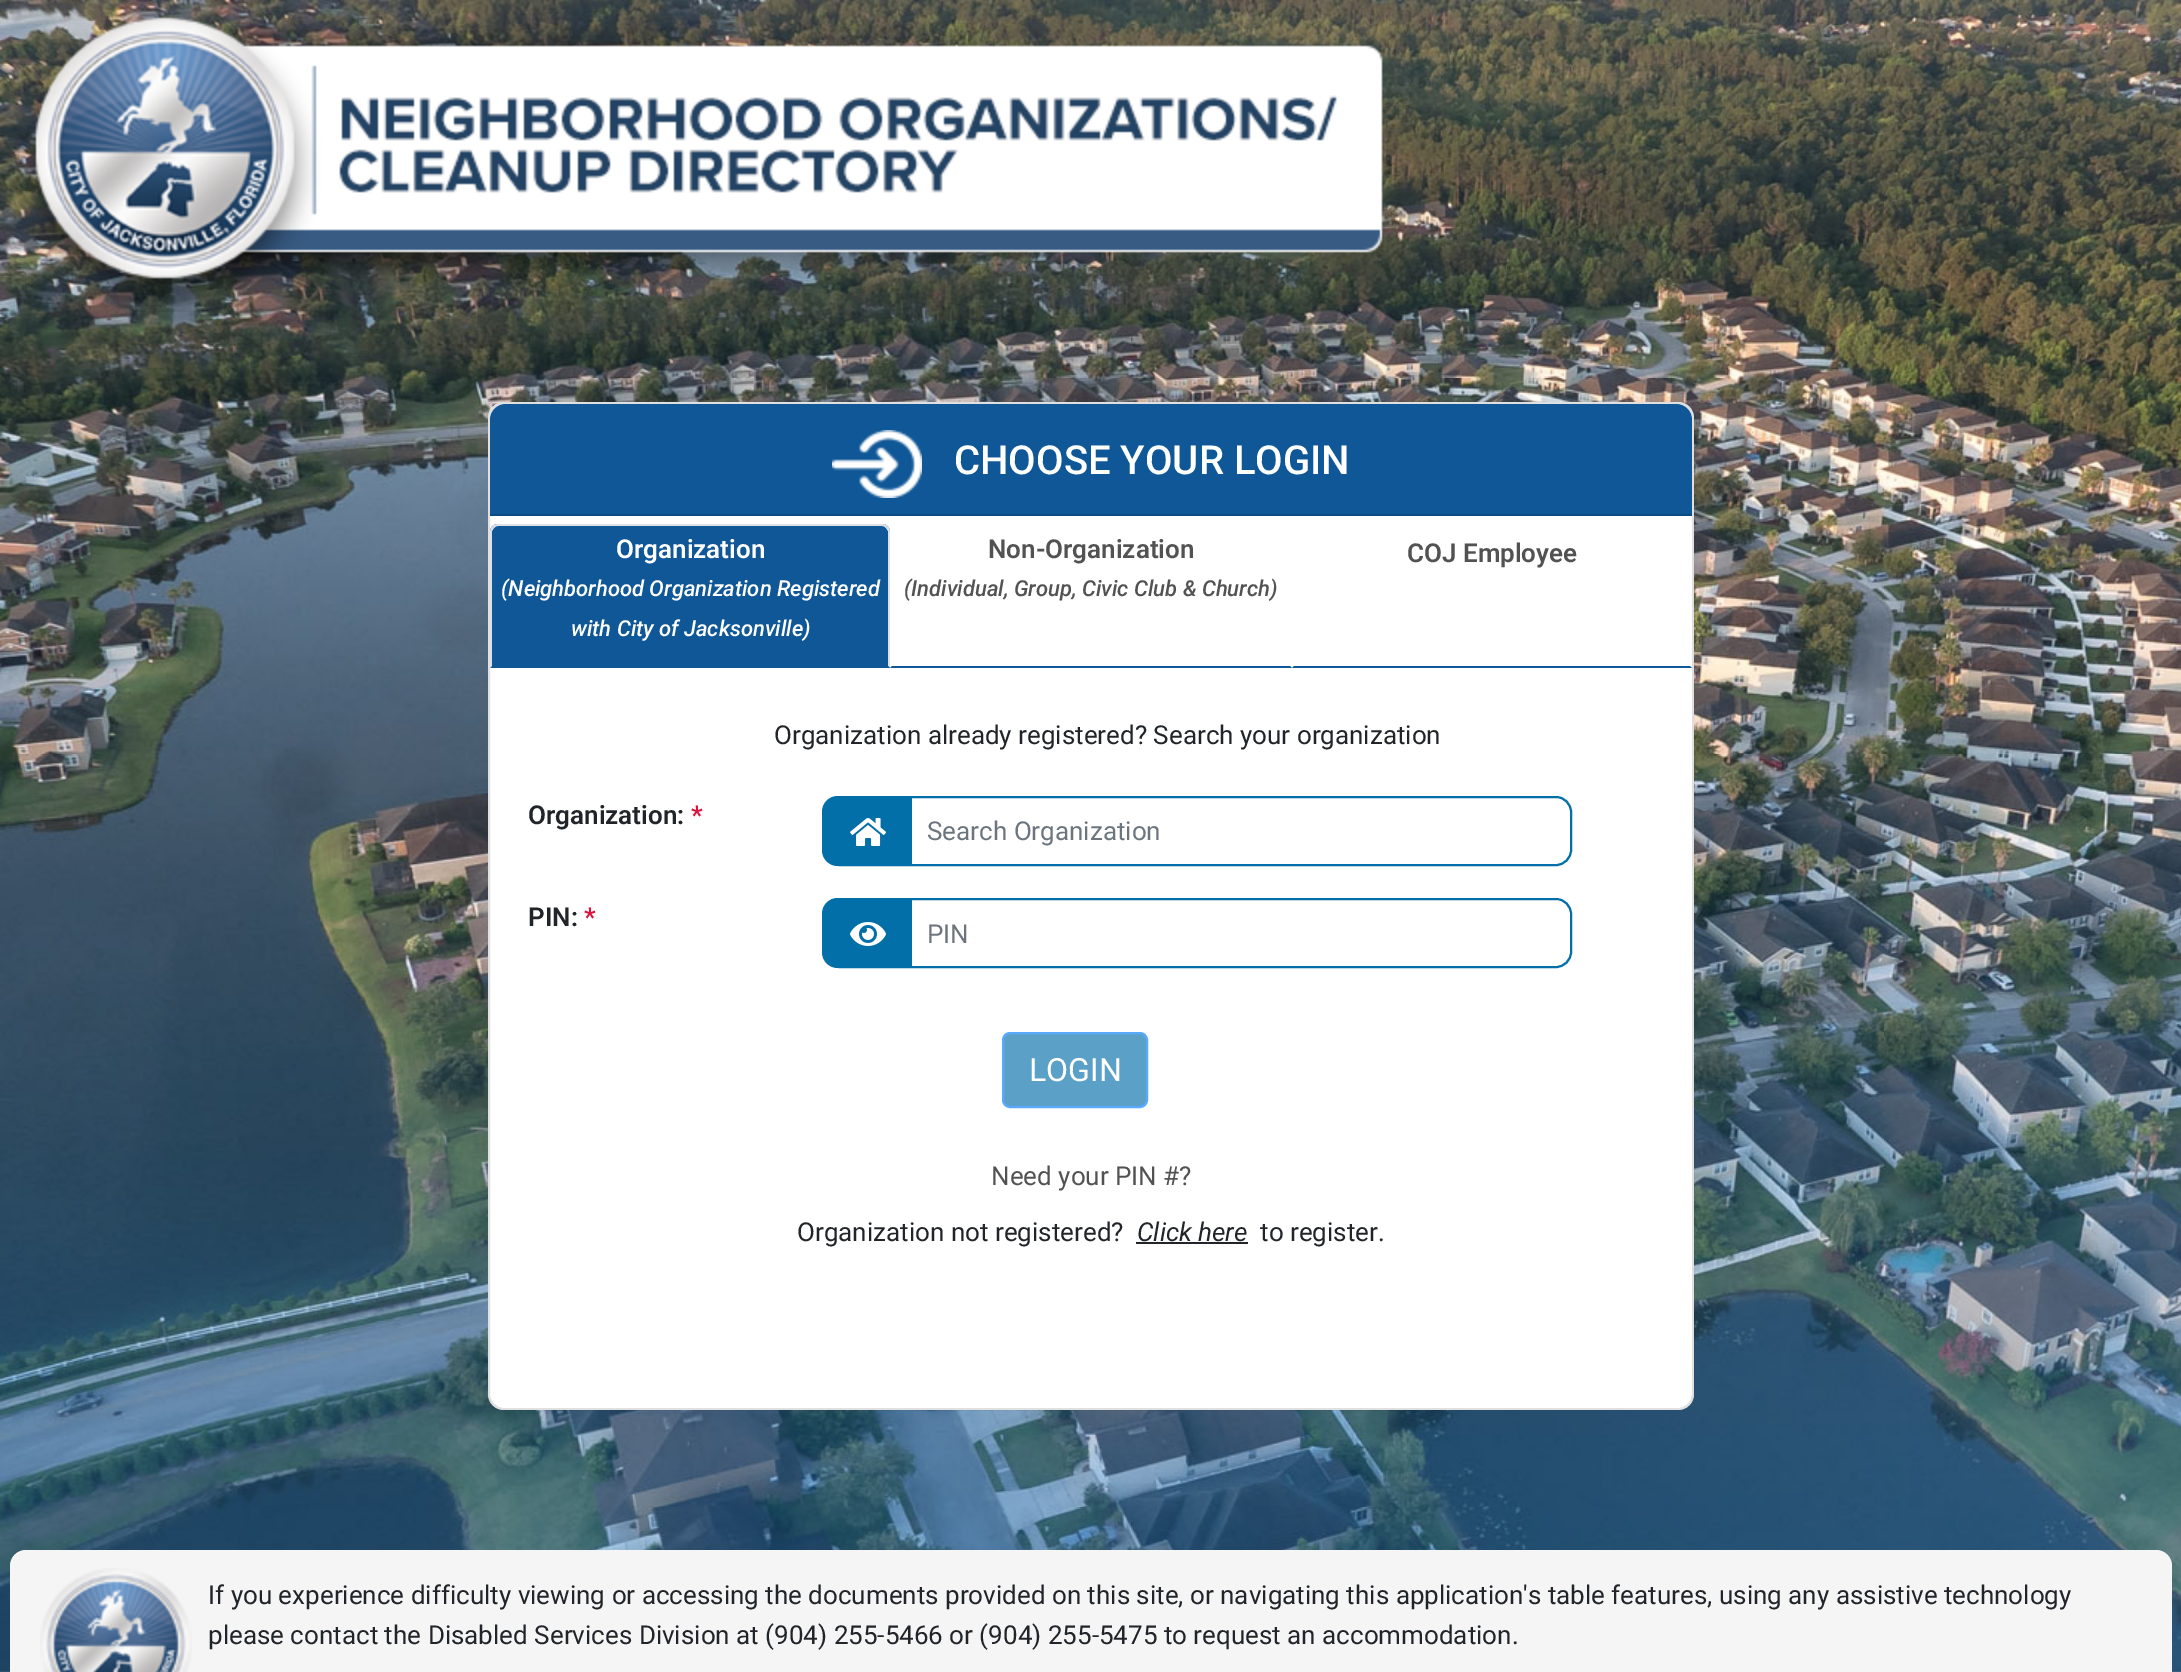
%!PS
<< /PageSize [2181 1672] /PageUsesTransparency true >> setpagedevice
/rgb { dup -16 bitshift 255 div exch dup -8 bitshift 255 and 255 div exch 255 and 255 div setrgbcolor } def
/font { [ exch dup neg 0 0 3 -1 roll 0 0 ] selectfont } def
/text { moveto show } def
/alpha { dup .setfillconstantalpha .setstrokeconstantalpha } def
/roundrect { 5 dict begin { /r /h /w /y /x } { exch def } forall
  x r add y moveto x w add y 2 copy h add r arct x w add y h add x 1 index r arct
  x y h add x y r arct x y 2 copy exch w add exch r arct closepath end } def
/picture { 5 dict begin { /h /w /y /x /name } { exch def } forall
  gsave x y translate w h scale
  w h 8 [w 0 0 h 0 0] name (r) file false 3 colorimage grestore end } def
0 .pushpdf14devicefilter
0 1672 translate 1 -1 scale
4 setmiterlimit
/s1 { /Roboto-Medium 40 font 16#FFFFFF rgb } def
/s2 { /Roboto-SemiBold 26 font 16#FFFFFF rgb } def
/s3 { /Roboto-MediumItalic 22 font 16#FFFFFF rgb } def
/s4 { /Roboto-SemiBold 26 font 16#525252 rgb } def
/s5 { /Roboto-MediumItalic 22 font 16#525252 rgb } def
/s6 { /Roboto-Regular 26 font 16#212529 rgb } def
/s7 { /Roboto-SemiBold 26 font 16#212529 rgb } def
/s8 { /Roboto-SemiBold 26 font 16#DC143C rgb } def
/s9 { /Roboto-Regular 26 font 16#6C757D rgb } def
/s10 { /Roboto-Regular 32 font 16#FFFFFF rgb } def
/s11 { /Roboto-Regular 26 font 16#525252 rgb } def
/s12 { /Roboto-Italic 26 font 16#212529 rgb } def
16#FFFFFF rgb
0 0 2181 1672 rectfill
(pic1.raw) 0 0 2181 1672 picture
(pic2.raw) 16 17 1367 295 picture
488 402 1206 1008 16 roundrect fill
0.12 alpha
16#000000 rgb
2 setlinewidth
489 403 1204 1006 15 roundrect stroke
1 alpha
16#0F5796 rgb
506 404 moveto 1676 404 lineto 1685 404 1692 411 1692 420 curveto 1692 516 lineto 490 516 lineto 490 420 lineto 490 411 497 404 506 404 curveto closepath fill
16#0D4C83 rgb
490 514 1202 2 rectfill
(pic3.raw) 832 430 90 68 picture
s1
(CHOOSE YOUR LOGIN) 954 474 text
16#0F5796 rgb
498 524 moveto 882 524 lineto 886.5 524 890 527.5 890 532 curveto 890 668 lineto 490 668 lineto 490 532 lineto 490 527.5 493.5 524 498 524 curveto closepath fill
16#DEE2E6 rgb
498 524 moveto 496 524 494 525 492 526 curveto 494 528 lineto 495 527 496 526 498 526 curveto 882 526 lineto 884 526 885 527 886 528 curveto 888 526 lineto 886 525 884 524 882 524 curveto closepath fill
890 668 moveto 890 532 lineto 890 530 889 528 888 526 curveto 886 528 lineto 888 531 lineto 888 666 lineto closepath fill
16#0F5796 rgb
890 668 moveto 888 666 lineto 492 666 lineto 490 668 lineto closepath fill
16#DEE2E6 rgb
490 668 moveto 492 666 lineto 492 531 lineto 494 528 lineto 492 526 lineto 491 528 490 530 490 532 curveto closepath fill
s2
(Organization) 616 558 text
s3
(\(Neighborhood Organization Registered) 501 596 text
(with City of Jacksonville\)) 571 636 text
16#0F5796 rgb
1292 668 moveto 1290 666 lineto 892 666 lineto 890 668 lineto closepath fill
s4
(Non-Organization) 988 558 text
s5
(\(Individual, Group, Civic Club & Church\)) 904 596 text
16#0F5796 rgb
1692 668 moveto 1690 666 lineto 1294 666 lineto 1292 668 lineto closepath fill
s4
(COJ Employee) 1407 562 text
s6
(Organization already registered? Search your organization) 774 744 text
s7
(Organization:) 528 824 text
s8
(*) 691 824 text
16#026FA9 rgb
825 797 746 68 15 roundrect stroke
838 796 moveto 912 796 lineto 912 866 lineto 838 866 lineto 829 866 822 859 822 850 curveto 822 812 lineto 822 803 829 796 838 796 curveto closepath fill
(pic4.raw) 850 818 36 28 picture
s9
(Search Organization) 927 840 text
s7
(PIN:) 528 926 text
s8
(*) 584 926 text
16#026FA9 rgb
825 899 746 68 15 roundrect stroke
838 898 moveto 912 898 lineto 912 968 lineto 838 968 lineto 829 968 822 961 822 952 curveto 822 914 lineto 822 905 829 898 838 898 curveto closepath fill
(pic5.raw) 850 922 36 24 picture
s9
(PIN) 927 943 text
16#5BA1C7 rgb
1003 1033 144 74 7 roundrect gsave fill grestore
16#59A9FF rgb
stroke
s10
(LOGIN) 1029 1081 text
s11
(Need your PIN #?) 991 1185 text
s6
(Organization not registered?) 797 1241 text
s12
(Click here) 1137 1241 text
1136 1242 112 2 rectfill
s6
(to register.) 1260 1241 text
16#F5F5F5 rgb
10 1550 2162 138 16 roundrect fill
(pic6.raw) 40 1568 152 104 picture
s6
(If you experience difficulty viewing or accessing the documents provided on this site, or navigating this application's table features, using any assistive technology) 208 1604 text
(please contact the Disabled Services Division at \(904\) 255-5466 or \(904\) 255-5475 to request an accommodation.) 208 1644 text
.poppdf14devicefilter showpage
